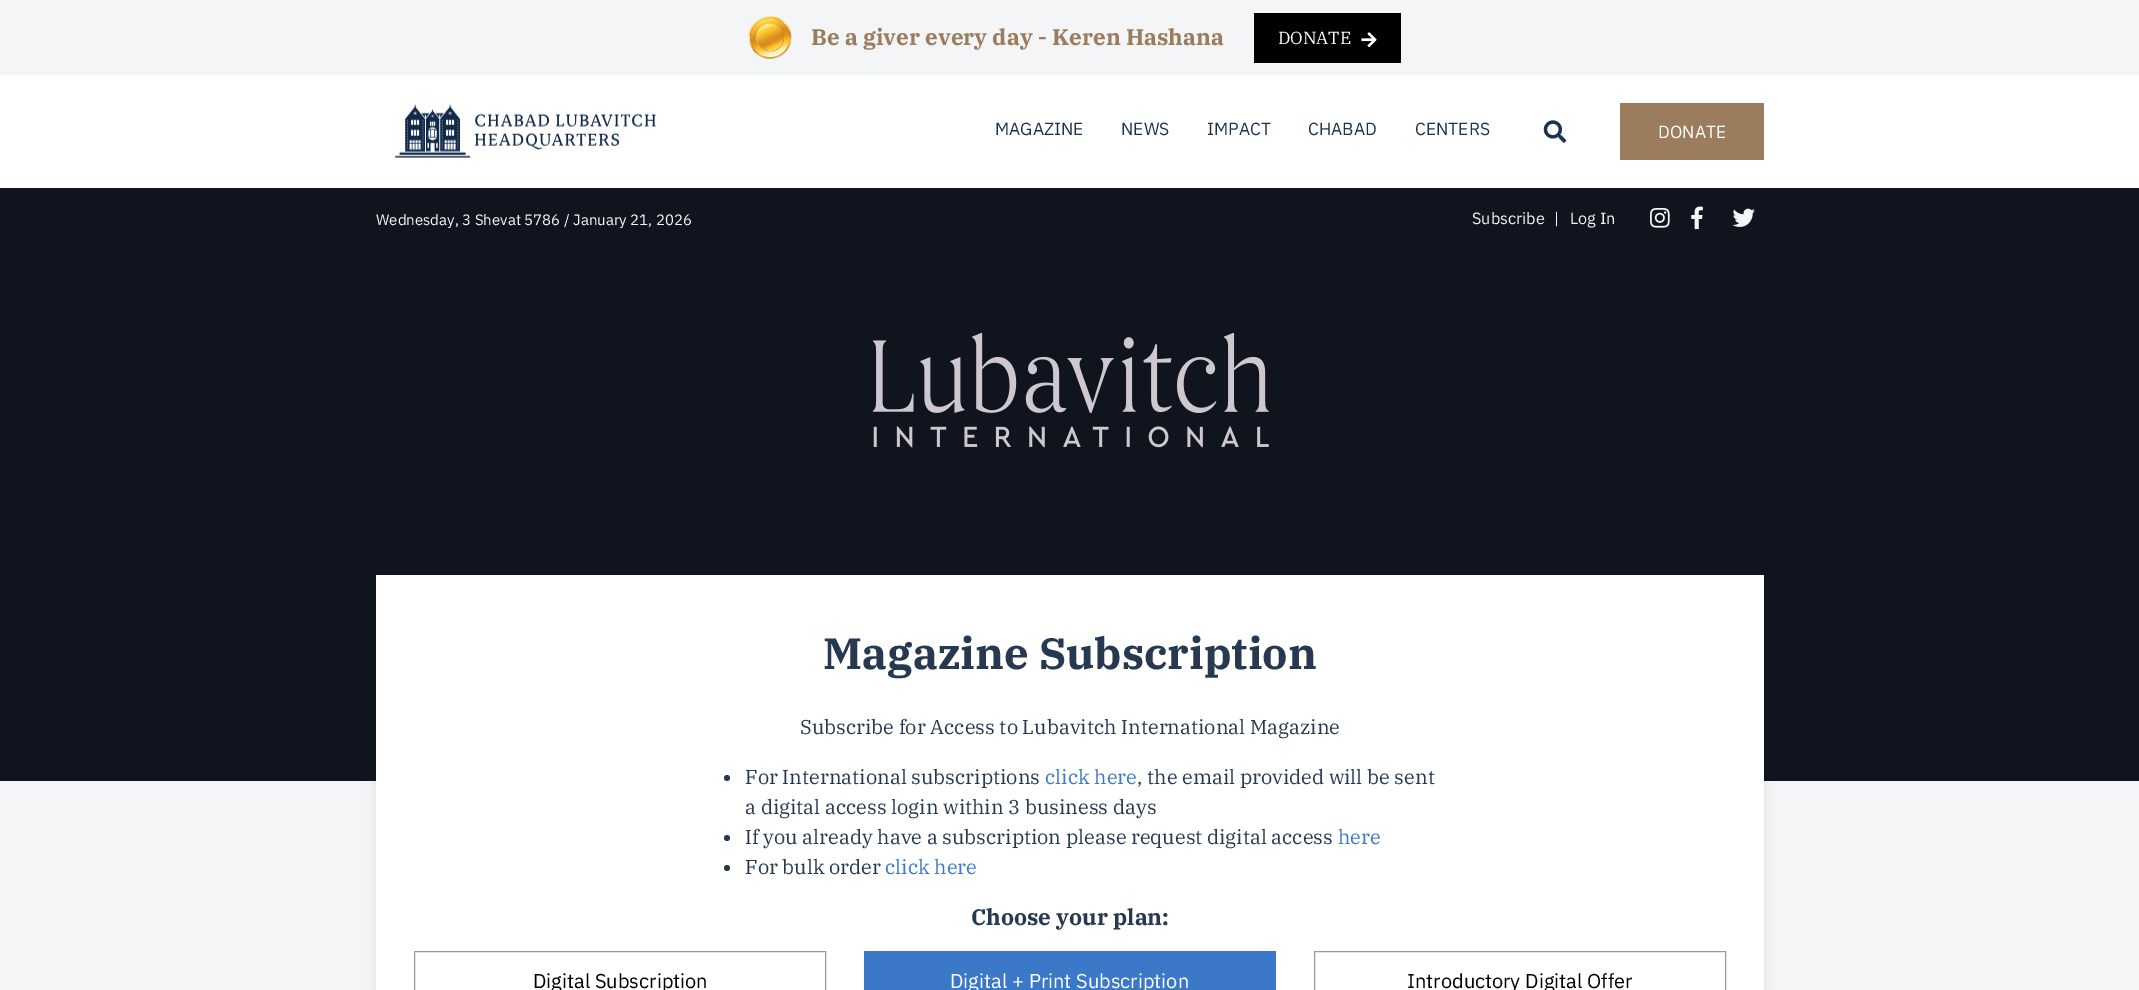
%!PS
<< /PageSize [2139 990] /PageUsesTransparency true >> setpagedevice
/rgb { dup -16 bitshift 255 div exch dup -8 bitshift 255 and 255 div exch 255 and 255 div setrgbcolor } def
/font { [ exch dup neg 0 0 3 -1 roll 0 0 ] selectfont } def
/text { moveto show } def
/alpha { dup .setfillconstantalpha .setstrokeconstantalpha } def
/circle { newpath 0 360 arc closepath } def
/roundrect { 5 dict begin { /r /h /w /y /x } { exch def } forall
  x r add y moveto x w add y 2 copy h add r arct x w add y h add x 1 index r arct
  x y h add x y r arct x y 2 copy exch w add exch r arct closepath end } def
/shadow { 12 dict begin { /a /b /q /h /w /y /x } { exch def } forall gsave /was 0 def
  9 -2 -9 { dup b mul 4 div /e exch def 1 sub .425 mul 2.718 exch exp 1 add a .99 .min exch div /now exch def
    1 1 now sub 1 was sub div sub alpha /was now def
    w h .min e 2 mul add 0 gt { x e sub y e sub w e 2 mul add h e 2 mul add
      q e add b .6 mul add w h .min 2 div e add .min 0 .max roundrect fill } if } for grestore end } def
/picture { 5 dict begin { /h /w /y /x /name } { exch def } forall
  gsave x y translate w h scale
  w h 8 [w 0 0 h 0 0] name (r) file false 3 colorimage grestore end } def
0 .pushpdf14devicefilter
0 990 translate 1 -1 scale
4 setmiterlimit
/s1 { /IBMPlexSerif-Bold 22.5 font 16#9B7D5E rgb } def
/s2 { /IBMPlexSerif-Regular 17.5 font 16#FFFFFF rgb } def
/s3 { /IBMPlexSans-Regular 17.5 font 16#1C324F rgb } def
/s4 { /IBMPlexSans-Regular 17.5 font 16#FFFFFF rgb } def
/s5 { /IBMPlexSans-Regular 15 font 16#F4F5F7 rgb } def
/s6 { /IBMPlexSans-Regular 16.25 font 16#F4F5F7 rgb } def
/s7 { /IBMPlexSerif-Bold 43.75 font 16#273951 rgb } def
/s8 { /IBMPlexSerif-Regular 20 font 16#273951 rgb } def
/s9 { /IBMPlexSerif-Regular 20 font 16#3B78C8 rgb } def
/s10 { /IBMPlexSerif-Bold 22.5 font 16#273951 rgb } def
/s11 { /IBMPlexSans-Regular 20 font 16#000000 rgb } def
/s12 { /IBMPlexSans-Regular 20 font 16#FFFFFF rgb } def
16#F4F5F7 rgb
0 0 2139 990 rectfill
16#FFFFFF rgb
0 75 2139 113 rectfill
(pic1.raw) 748 16 44 43 picture
s1
(Be a giver every day - Keren Hashana) 811 45 text
16#000000 rgb
1254 13 147 50 rectfill
s2
(DONATE) 1278 44 text
(pic2.raw) 1361 32 16 16 picture
(pic3.raw) 395 104 75 54 picture
(pic4.raw) 475 113 181 37 picture
s3
(MAGAZINE) 995 135 text
(NEWS) 1121 135 text
(IMPACT) 1207 135 text
(CHABAD) 1308 135 text
(CENTERS) 1415 135 text
(pic5.raw) 1543 120 24 23 picture
16#9B7D5E rgb
1620 103 144 57 rectfill
s4
(DONATE) 1658 138 text
16#0F141E rgb
0 188 2139 593 rectfill
s5
(Wednesday, 3 Shevat 5786 / January 21, 2026) 376 225 text
s6
(Subscribe) 1472 224 text
(|) 1554 224 text
(Log In) 1570 224 text
(pic6.raw) 1650 208 20 20 picture
(pic7.raw) 1691 206 12 24 picture
(pic8.raw) 1732 208 23 19 picture
(pic9.raw) 873 333 396 115 picture
16#000000 rgb
376 578 1388 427 0 5 0.1 shadow
16#FFFFFF rgb
376 575 1388 415 rectfill
s7
(Magazine Subscription) 823 669 text
s8
(Subscribe for Access to Lubavitch International Magazine) 800 734 text
727 778 3 circle fill
(For International subscriptions) 745 784 text
s9
(click here) 1045 784 text
s8
(, the email provided will be sent) 1137 784 text
(a digital access login within 3 business days) 745 814 text
727 838 3 circle fill
(If you already have a subscription please request digital access) 745 844 text
s9
(here) 1338 844 text
16#273951 rgb
727 868 3 circle fill
(For bulk order) 745 874 text
s9
(click here) 885 874 text
s10
(Choose your plan:) 971 925 text
16#999999 rgb
414.5 951.5 411 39 rectstroke
s11
(Digital Subscription) 533 988 text
16#3B78C8 rgb
864 951 412 39 rectfill
s12
(Digital + Print Subscription) 950 988 text
16#999999 rgb
1314.5 951.5 411 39 rectstroke
s11
(Introductory Digital Offer) 1407 988 text
.poppdf14devicefilter showpage
